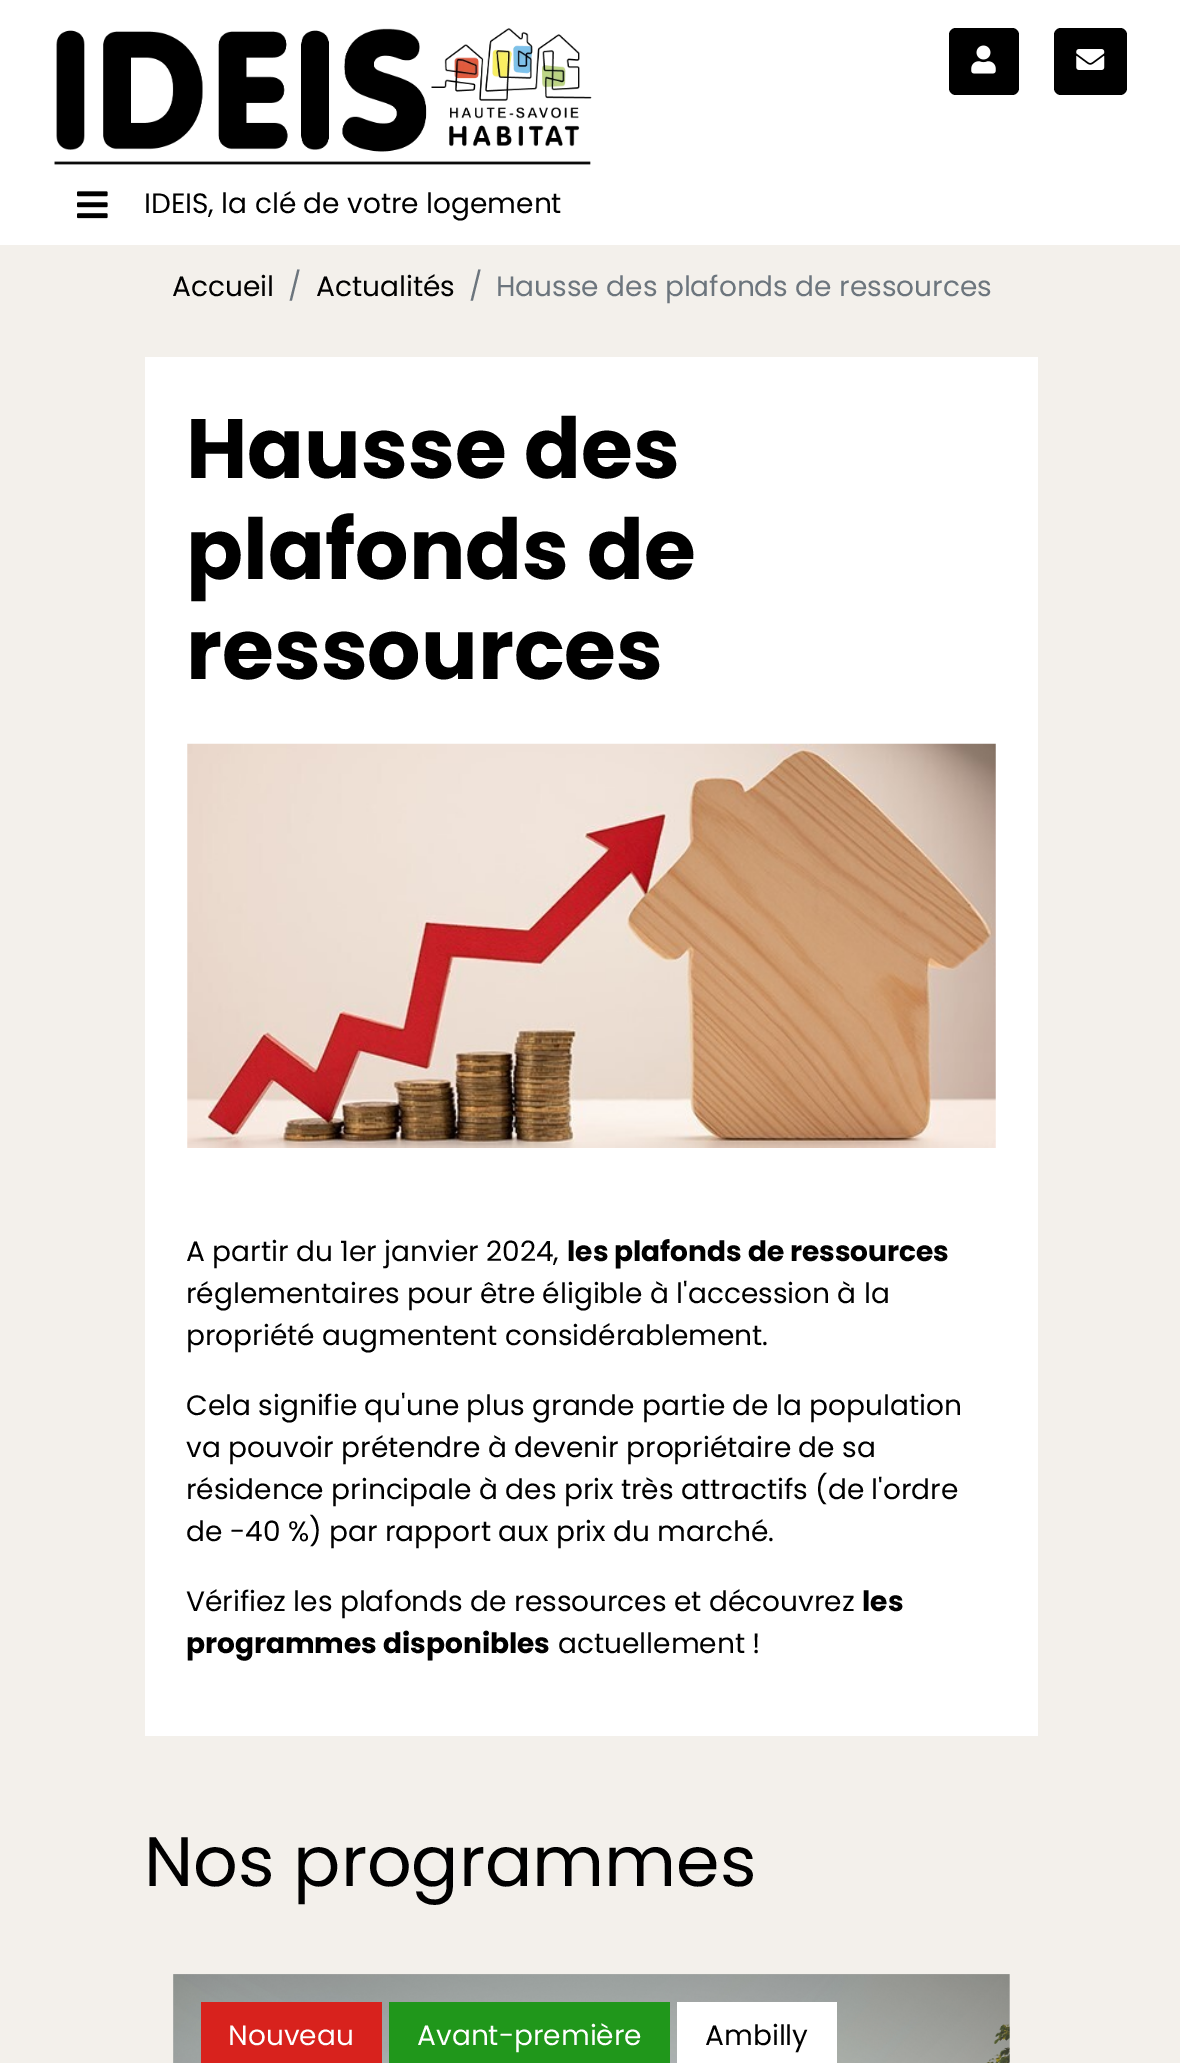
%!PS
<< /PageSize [1180 2063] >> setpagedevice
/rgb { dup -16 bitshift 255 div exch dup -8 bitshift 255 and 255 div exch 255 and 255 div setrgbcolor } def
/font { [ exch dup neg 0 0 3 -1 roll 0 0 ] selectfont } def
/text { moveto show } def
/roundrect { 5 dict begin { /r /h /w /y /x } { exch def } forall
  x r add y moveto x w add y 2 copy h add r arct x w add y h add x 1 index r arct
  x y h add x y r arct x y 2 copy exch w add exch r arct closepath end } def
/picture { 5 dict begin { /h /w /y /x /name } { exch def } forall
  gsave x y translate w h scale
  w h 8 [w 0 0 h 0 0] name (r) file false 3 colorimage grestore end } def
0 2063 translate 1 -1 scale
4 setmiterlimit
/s1 { /Poppins-Regular 28 font 16#000000 rgb } def
/s2 { /Poppins-Regular 28 font 16#6C757D rgb } def
/s3 { /Poppins-Bold 84 font 16#000000 rgb } def
/s4 { /Poppins-Bold 28 font 16#000000 rgb } def
/s5 { /Poppins-Regular 70 font 16#000000 rgb } def
/s6 { /Poppins-Regular 28 font 16#FFFFFF rgb } def
16#F3F0EB rgb
0 0 1180 2063 rectfill
16#FFFFFF rgb
0 0 1180 245 rectfill
(pic1.raw) 54 28 538 137 picture
16#000000 rgb
949 28 70 67 7 roundrect fill
(pic2.raw) 971 45 25 29 picture
1054 28 73 67 7 roundrect fill
(pic3.raw) 1076 49 29 21 picture
(pic4.raw) 77 191 31 28 picture
s1
(IDEIS, la clé de votre logement) 144 213 text
(Accueil) 172 296 text
s2
(/) 288 296 text
s1
(Actualités) 316 296 text
s2
(/) 469 296 text
(Hausse des plafonds de ressources) 496 296 text
16#FFFFFF rgb
145 357 893 1379 rectfill
s3
(Hausse des) 186 478 text
(plafonds de) 186 579 text
(ressources) 186 679 text
(pic5.raw) 187 743 809 405 picture
s1
(A partir du 1er janvier 2024,) 186 1261 text
s4
(les plafonds de ressources) 567 1261 text
s1
(réglementaires pour être éligible à l'accession à la) 186 1303 text
(propriété augmentent considérablement.) 186 1345 text
(Cela signifie qu'une plus grande partie de la population) 186 1415 text
(va pouvoir prétendre à devenir propriétaire de sa) 186 1457 text
(résidence principale à des prix très attractifs \(de l'ordre) 186 1499 text
(de -40 %\) par rapport aux prix du marché.) 186 1541 text
(Vérifiez les plafonds de ressources et découvrez) 186 1611 text
s4
(les) 862 1611 text
(programmes disponibles) 186 1653 text
s1
(actuellement !) 558 1653 text
s5
(Nos programmes) 144 1886 text
(pic6.raw) 173 1974 837 89 picture
16#D8221D rgb
201 2002 181 61 rectfill
s6
(Nouveau) 228 2045 text
16#20971B rgb
389 2002 281 61 rectfill
s6
(Avant-première) 417 2045 text
677 2002 160 61 rectfill
s1
(Ambilly) 705 2045 text
showpage
